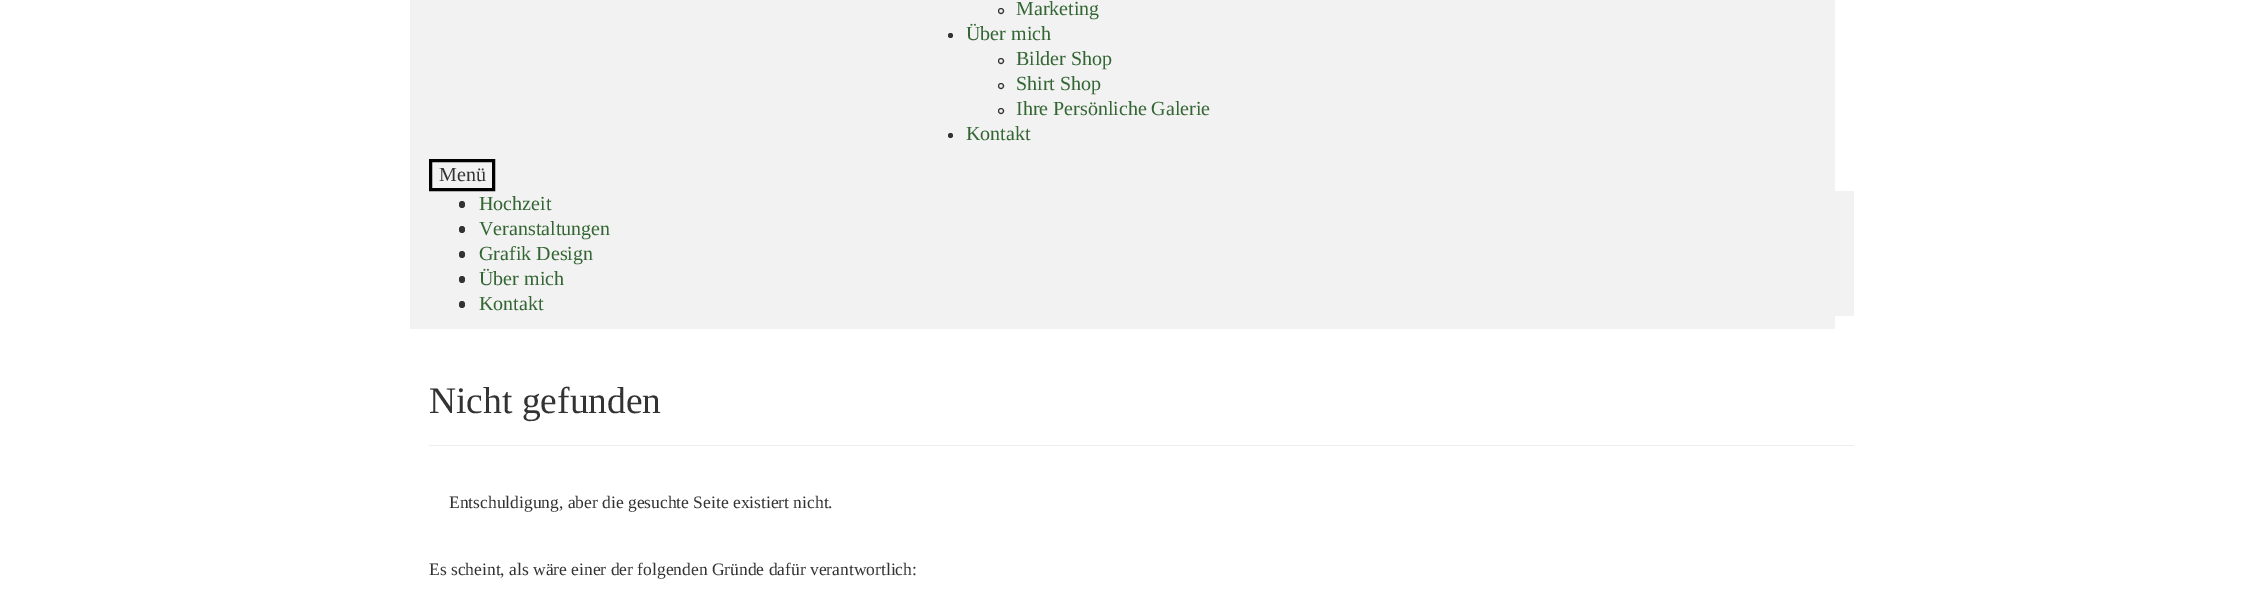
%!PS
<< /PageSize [2244 596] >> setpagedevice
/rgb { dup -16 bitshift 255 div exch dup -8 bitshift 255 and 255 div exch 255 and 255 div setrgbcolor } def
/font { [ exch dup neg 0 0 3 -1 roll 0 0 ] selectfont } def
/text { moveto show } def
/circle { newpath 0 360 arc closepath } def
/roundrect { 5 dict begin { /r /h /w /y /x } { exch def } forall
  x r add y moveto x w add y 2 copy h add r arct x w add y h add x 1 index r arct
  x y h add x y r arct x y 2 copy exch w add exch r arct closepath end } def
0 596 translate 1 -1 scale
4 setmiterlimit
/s1 { /LiberationSerif-Regular 20 font 16#336633 rgb } def
/s2 { /LiberationSerif-Regular 20 font 16#333333 rgb } def
/s3 { /LiberationSerif-Regular 37.5 font 16#333333 rgb } def
/s4 { /LiberationSerif-Regular 17.5 font 16#333333 rgb } def
16#FFFFFF rgb
0 0 2244 596 rectfill
16#F2F2F2 rgb
410 0 1425 329 rectfill
16#333333 rgb
1001 11 2.5 circle stroke
s1
(Marketing) 1016 15 text
16#333333 rgb
950.5 35.5 2.5 circle fill
s1
(Über mich) 966 40 text
16#333333 rgb
1001 61 2.5 circle stroke
s1
(Bilder Shop) 1016 65 text
16#333333 rgb
1001 86 2.5 circle stroke
s1
(Shirt Shop) 1016 90 text
16#333333 rgb
1001 111 2.5 circle stroke
s1
(Ihre Persönliche Galerie) 1016 115 text
16#333333 rgb
950.5 135.5 2.5 circle fill
s1
(Kontakt) 966 140 text
16#000000 rgb
3 setlinewidth
430.5 160.5 63 29 rectstroke
s2
(Menü) 439 181 text
16#F2F2F2 rgb
1835 191 19 125 rectfill
16#333333 rgb
459 201 6 7 3 roundrect fill
s1
(Hochzeit) 479 210 text
16#333333 rgb
459 226 6 7 3 roundrect fill
s1
(Veranstaltungen) 479 235 text
16#333333 rgb
459 251 6 7 3 roundrect fill
s1
(Grafik Design) 479 260 text
16#333333 rgb
459 276 6 7 3 roundrect fill
s1
(Über mich) 479 285 text
16#333333 rgb
459 301 6 7 3 roundrect fill
s1
(Kontakt) 479 310 text
16#EEEEEE rgb
429 445 1425 1 rectfill
s3
(Nicht gefunden) 429 413 text
s4
(Entschuldigung, aber die gesuchte Seite existiert nicht.) 449 508 text
(Es scheint, als wäre einer der folgenden Gründe dafür verantwortlich:) 429 575 text
showpage
